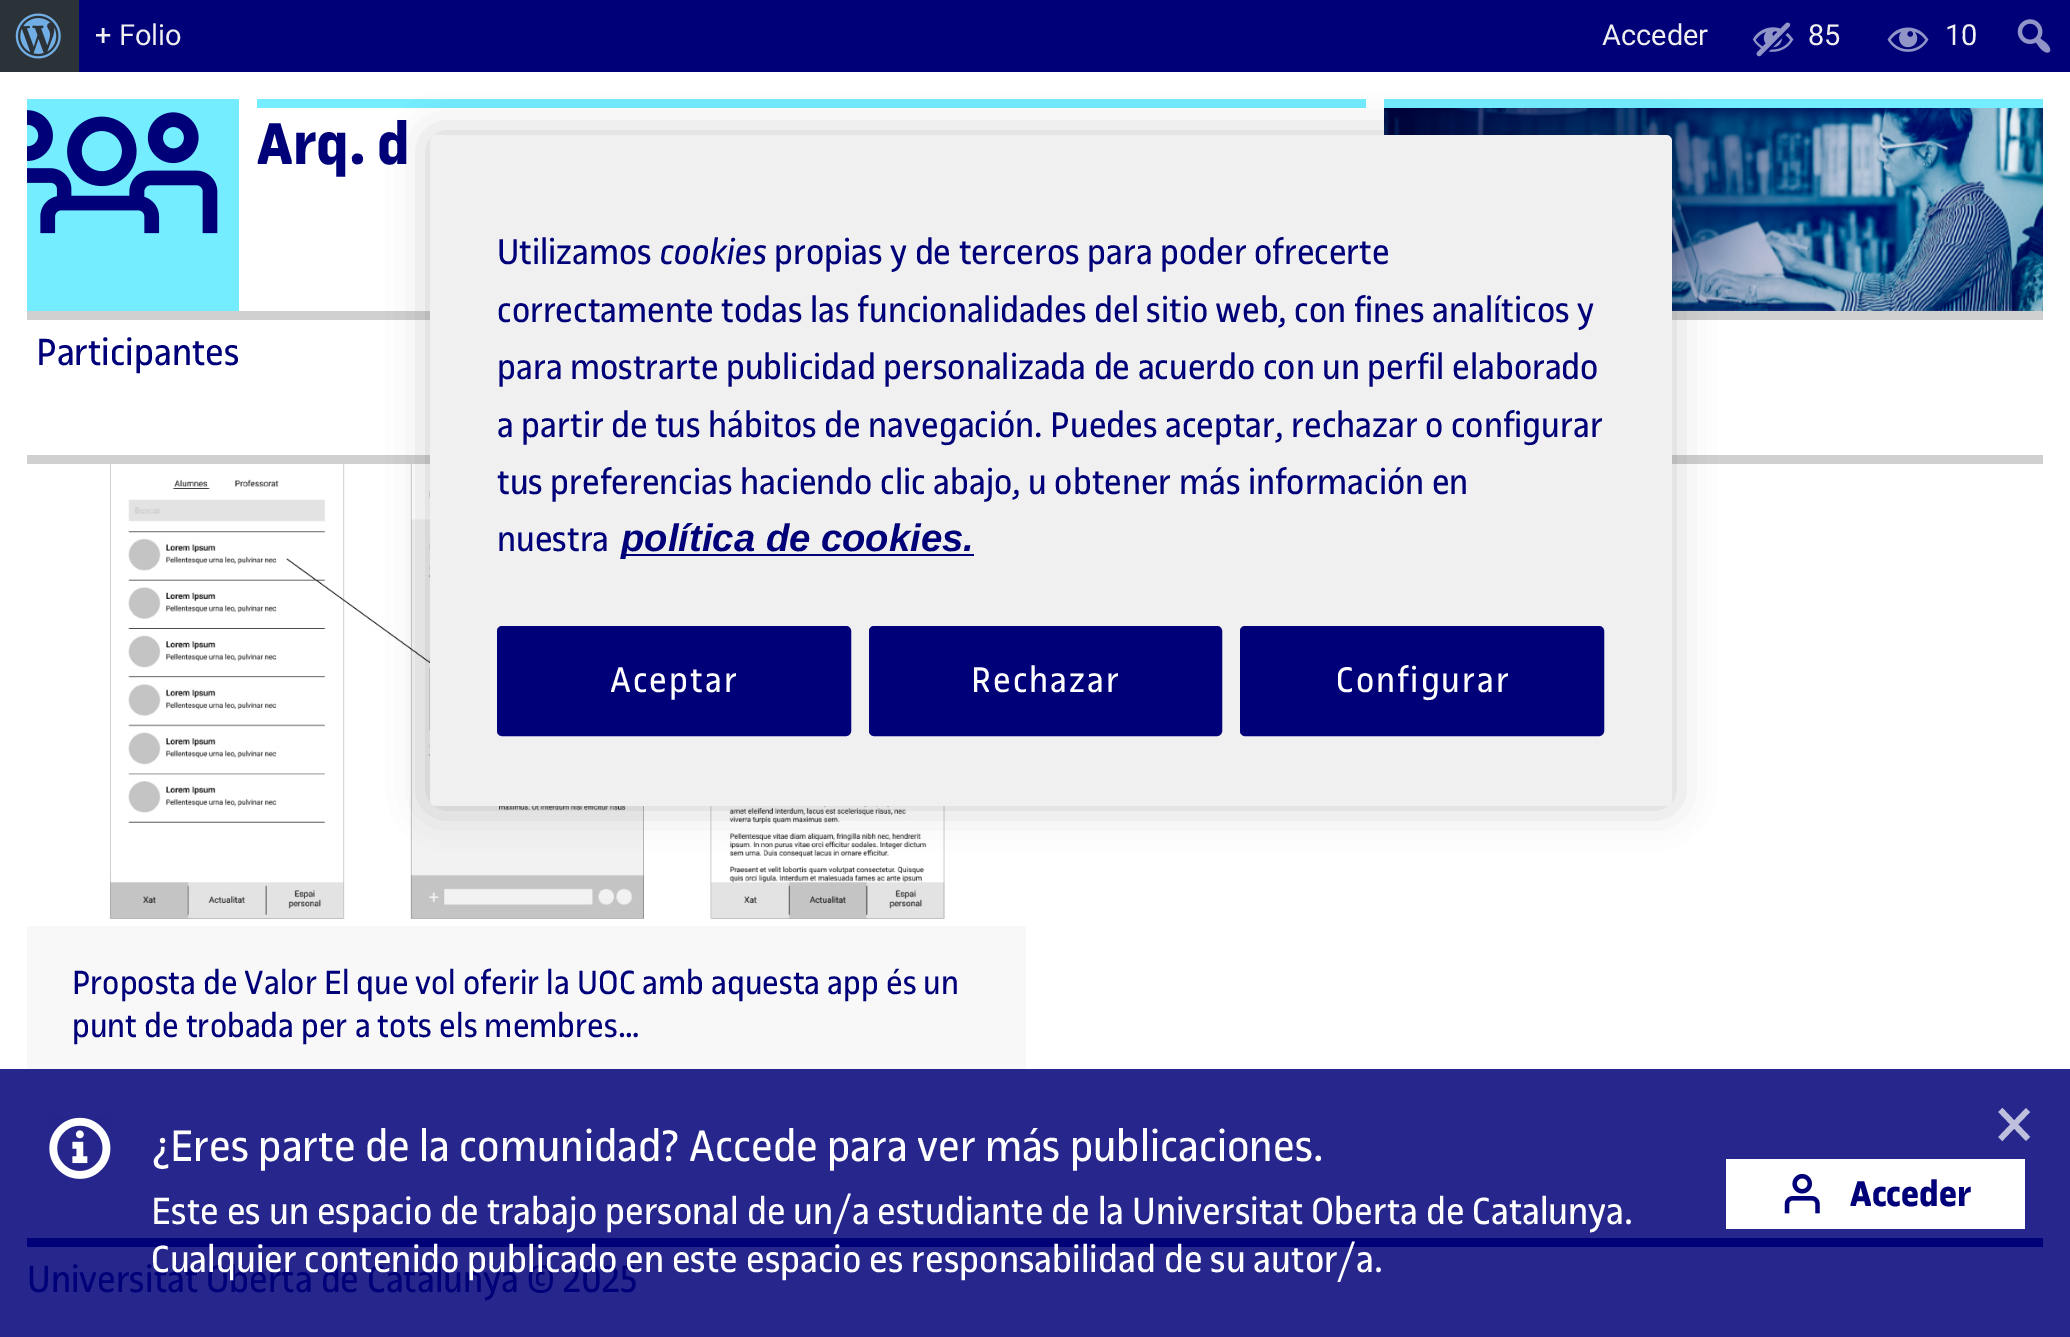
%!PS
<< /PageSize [2070 1337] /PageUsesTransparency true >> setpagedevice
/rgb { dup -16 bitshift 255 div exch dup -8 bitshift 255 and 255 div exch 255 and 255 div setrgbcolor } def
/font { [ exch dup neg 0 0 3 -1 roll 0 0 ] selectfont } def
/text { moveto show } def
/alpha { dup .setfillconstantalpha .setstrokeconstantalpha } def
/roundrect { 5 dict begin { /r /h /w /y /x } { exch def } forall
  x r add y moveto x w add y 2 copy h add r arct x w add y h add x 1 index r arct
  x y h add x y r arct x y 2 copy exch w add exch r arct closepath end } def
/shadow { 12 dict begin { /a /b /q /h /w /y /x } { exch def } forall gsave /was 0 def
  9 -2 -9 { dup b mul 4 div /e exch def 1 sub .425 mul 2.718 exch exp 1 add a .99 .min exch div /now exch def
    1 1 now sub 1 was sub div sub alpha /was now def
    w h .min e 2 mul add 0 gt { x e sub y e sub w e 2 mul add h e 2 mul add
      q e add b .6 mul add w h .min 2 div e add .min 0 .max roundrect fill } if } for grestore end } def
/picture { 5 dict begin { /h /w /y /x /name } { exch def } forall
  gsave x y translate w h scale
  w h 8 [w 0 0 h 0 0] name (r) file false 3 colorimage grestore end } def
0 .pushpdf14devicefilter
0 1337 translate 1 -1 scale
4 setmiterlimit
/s1 { /Roboto-Regular 29 font 16#F0F0F1 rgb } def
/s2 { /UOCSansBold-Bold 63 font 16#000078 rgb } def
/s3 { /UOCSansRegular-Regular 40.5 font 16#000078 rgb } def
/s4 { /UOCSansRegular-Regular 36 font 16#000078 rgb } def
/s5 { /UOCSansRegular-Regular 47.25 font 16#FFFFFF rgb } def
/s6 { /UOCSansRegular-Regular 40.5 font 16#FFFFFF rgb } def
/s7 { /UOCSansBold-Bold 38.25 font 16#000078 rgb } def
/s8 { /UOCSansRegular-Regular 81 font 16#BEBEDD rgb } def
/s9 { /UOCSansRegular-Regular 38.25 font 16#000078 rgb } def
/s10 { /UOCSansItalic-Italic 38.25 font 16#000078 rgb } def
/s11 { /LiberationSans-BoldItalic 38.25 font 16#000078 rgb } def
16#FFFFFF rgb
0 0 2070 1337 rectfill
16#26268C rgb
0 1069 2070 268 rectfill
16#000078 rgb
79 0 1991 72 rectfill
16#2C3338 rgb
0 0 79 72 rectfill
(pic1.raw) 15 13 46 46 picture
s1
(+ Folio) 95 45 text
(Acceder) 1602 45 text
(pic2.raw) 1752 22 42 35 picture
(85) 1808 45 text
(pic3.raw) 1887 27 42 25 picture
(10) 1945 45 text
(pic4.raw) 2017 19 34 34 picture
16#73EDFF rgb
27 99 212 212 rectfill
(pic5.raw) 27 110 191 124 picture
257 99 1109 9 rectfill
s2
(Arq. d) 257 164 text
16#73EDFF rgb
1384 99 659 9 rectfill
(pic6.raw) 1384 108 659 203 picture
16#D0D0D0 rgb
27 311 403 9 rectfill
27 455 403 9 rectfill
s3
(Participantes) 36 365 text
16#D0D0D0 rgb
1672 311 371 9 rectfill
1672 455 371 9 rectfill
16#F8F8F8 rgb
27 927 999 142 rectfill
16#F3F3F3 rgb
27 926 999 1 rectfill
(pic7.raw) 27 464 999 463 picture
s4
(Proposta de Valor El que vol oferir la UOC amb aquesta app és un) 72 994 text
(punt de trobada per a tots els membres…) 72 1037 text
(pic8.raw) 49 1117 62 62 picture
s5
(¿Eres parte de la comunidad? Accede para ver más publicaciones.) 151 1161 text
s6
(Este es un espacio de trabajo personal de un/a estudiante de la Universitat Oberta de Catalunya.) 151 1224 text
16#000078 rgb
27 1238 2016 9 rectfill
(Universitat Oberta de Catalunya © 2025) 27 1292 text
s6
(Cualquier contenido publicado en este espacio es responsabilidad de su autor/a.) 151 1272 text
1726 1159 299 70 rectfill
(pic9.raw) 1784 1173 36 41 picture
s7
(Acceder) 1850 1206 text
s8
(×) 1994 1152 text
16#000000 rgb
430 135 1242 671 6 20 0.2 shadow
16#F0F0F0 rgb
430 135 1242 671 6 roundrect fill
s9
(Utilizamos) 497 264 text
s10
(cookies) 660 264 text
s9
(propias y de terceros para poder ofrecerte) 774 264 text
(correctamente todas las funcionalidades del sitio web, con fines analíticos y) 497 322 text
(para mostrarte publicidad personalizada de acuerdo con un perfil elaborado) 497 379 text
(a partir de tus hábitos de navegación. Puedes aceptar, rechazar o configurar) 497 437 text
(tus preferencias haciendo clic abajo, u obtener más información en) 497 494 text
(nuestra) 497 551 text
621 554 353 2 rectfill
s11
(política de cookies.) 621 551 text
498 627 352 108 4 roundrect gsave fill grestore
2 setlinewidth
stroke
/UOCSansRegular-Regular 38.25 font
16#FFFFFF rgb
610 692 moveto 2 0 (Aceptar) ashow
16#000078 rgb
870 627 351 108 4 roundrect gsave fill grestore
stroke
16#FFFFFF rgb
971 692 moveto 2 0 (Rechazar) ashow
16#000078 rgb
1241 627 362 108 4 roundrect gsave fill grestore
stroke
16#FFFFFF rgb
1336 692 moveto 2 0 (Configurar) ashow
.poppdf14devicefilter showpage
